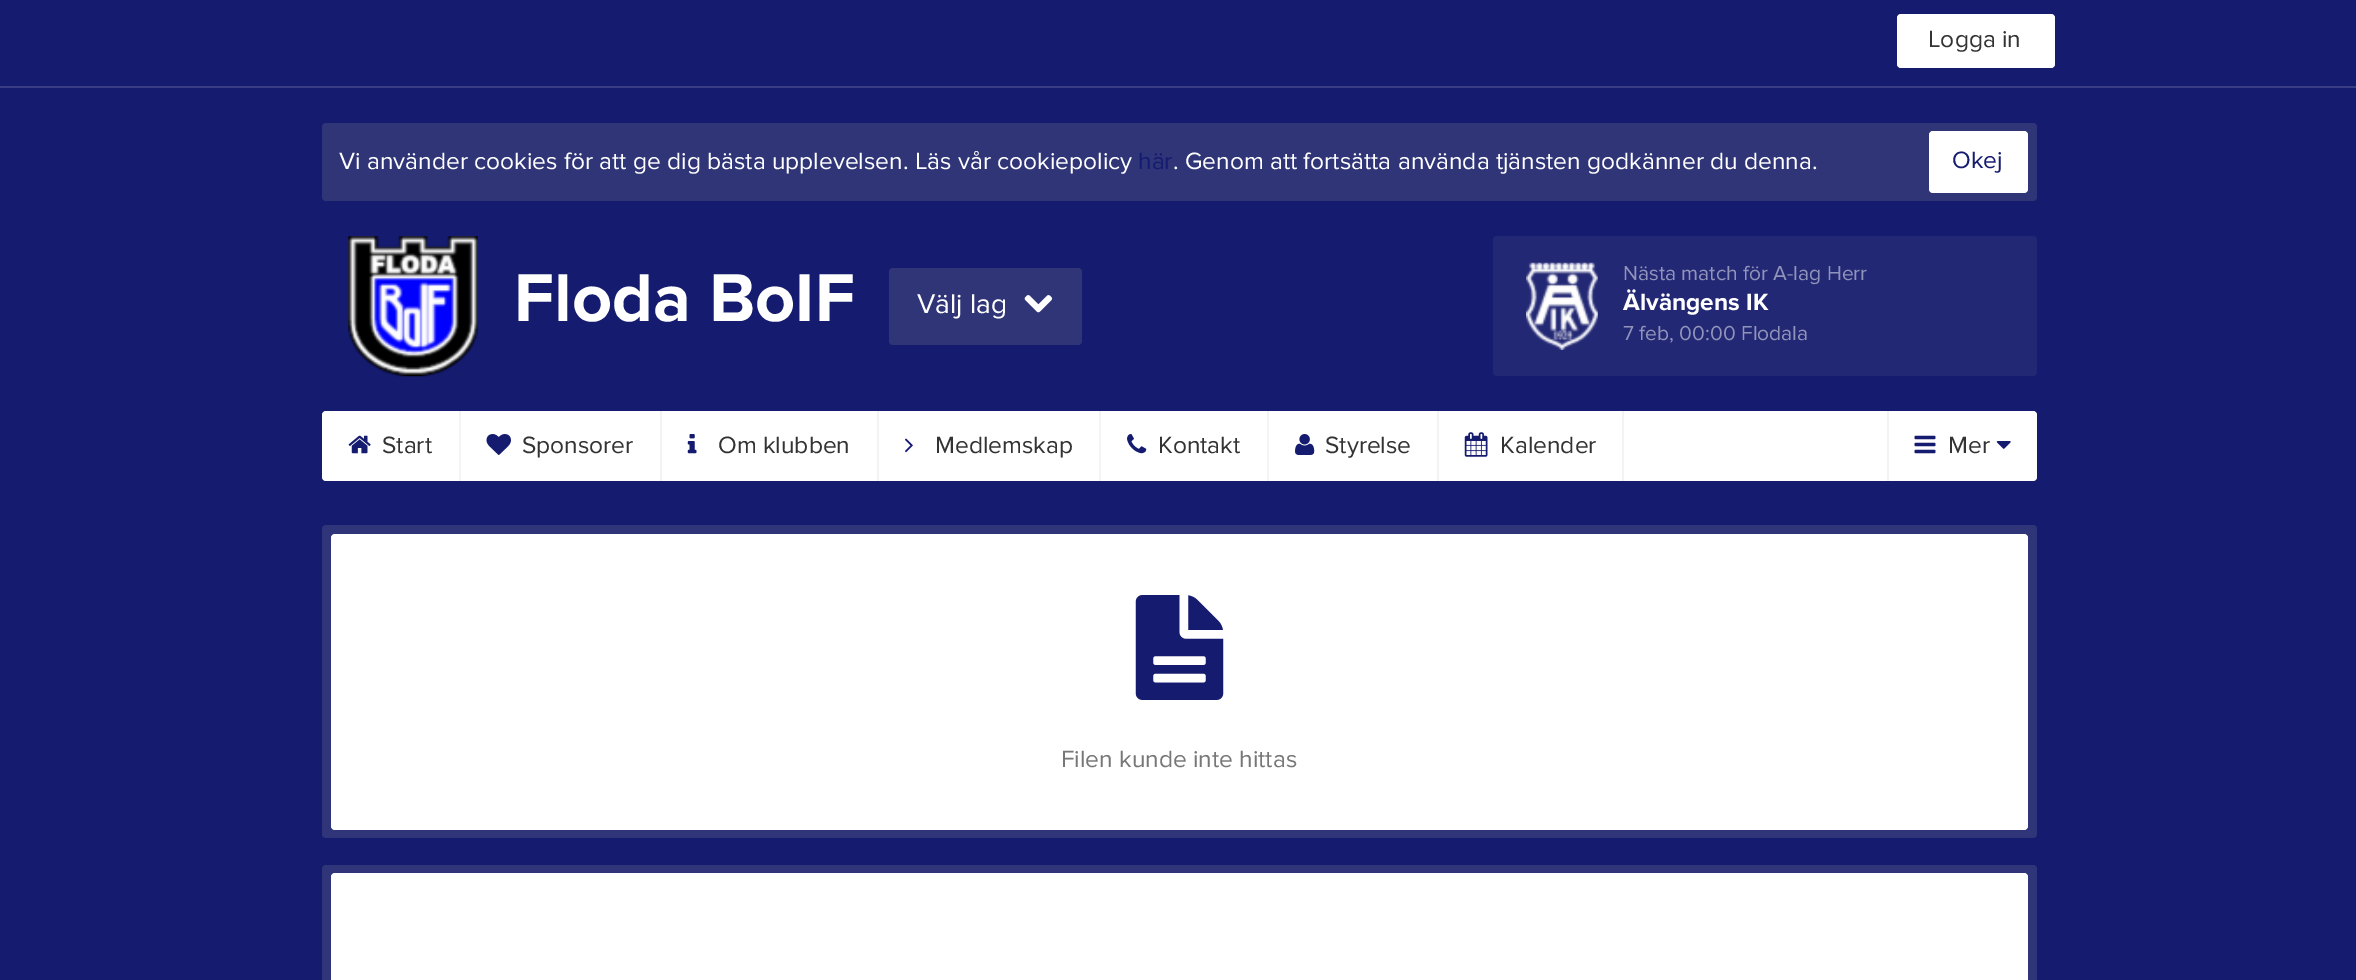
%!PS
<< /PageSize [2356 980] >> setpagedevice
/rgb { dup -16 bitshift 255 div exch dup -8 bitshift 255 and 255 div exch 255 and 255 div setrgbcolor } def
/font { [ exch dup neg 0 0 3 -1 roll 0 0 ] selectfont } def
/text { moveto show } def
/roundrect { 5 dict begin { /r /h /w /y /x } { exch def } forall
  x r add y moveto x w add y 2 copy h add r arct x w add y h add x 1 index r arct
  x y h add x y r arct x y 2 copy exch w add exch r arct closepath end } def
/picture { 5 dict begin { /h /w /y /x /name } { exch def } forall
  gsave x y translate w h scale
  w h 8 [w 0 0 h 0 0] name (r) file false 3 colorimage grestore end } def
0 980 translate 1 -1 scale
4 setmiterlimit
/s1 { /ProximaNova-Regular 24.5 font 16#333333 rgb } def
/s2 { /ProximaNova-Regular 24.5 font 16#FFFFFF rgb } def
/s3 { /ProximaNova-Regular 24.5 font 16#151B6F rgb } def
/s4 { /ProximaNova-Bold 70 font 16#FFFFFF rgb } def
/s5 { /ProximaNova-Regular 28 font 16#FFFFFF rgb } def
/s6 { /ProximaNova-Regular 21 font 16#9194BA rgb } def
/s7 { /ProximaNova-Bold 24.5 font 16#FFFFFF rgb } def
/s8 { /ProximaNova-Regular 24.5 font 16#777777 rgb } def
16#151B6F rgb
0 0 2356 980 rectfill
16#383D85 rgb
0 86 2356 2 rectfill
16#FFFFFF rgb
1897 14 158 54 4 roundrect fill
s1
(Logga in) 1928 47 text
16#303578 rgb
322 123 1715 78 4 roundrect fill
s2
(Vi använder cookies för att ge dig bästa upplevelsen. Läs vår cookiepolicy) 339 169 text
s3
(här) 1138 169 text
s2
(. Genom att fortsätta använda tjänsten godkänner du denna.) 1173 169 text
1929 131 99 62 4 roundrect fill
s3
(Okej) 1952 168 text
(pic1.raw) 348 236 130 141 picture
s4
(Floda BoIF) 514 321 text
16#303578 rgb
889 268 193 77 4 roundrect fill
s5
(Välj lag) 917 313 text
(pic2.raw) 1024 295 29 18 picture
16#232874 rgb
1493 236 544 140 4 roundrect fill
(pic3.raw) 1526 262 72 88 picture
s6
(Nästa match för A-lag Herr) 1623 280 text
s7
(Älvängens IK) 1623 310 text
s6
(7 feb, 00:00) 1623 340 text
(Flodala) 1741 340 text
16#FFFFFF rgb
322 411 1715 70 4 roundrect fill
16#F3F3F3 rgb
459 411 2 70 rectfill
(pic4.raw) 348 435 23 19 picture
s1
(Start) 382 453 text
16#F3F3F3 rgb
660 411 2 70 rectfill
(pic5.raw) 486 434 25 21 picture
s1
(Sponsorer) 522 453 text
16#F3F3F3 rgb
877 411 2 70 rectfill
(pic6.raw) 687 434 10 20 picture
s1
(Om klubben) 718 453 text
16#F3F3F3 rgb
1099 411 2 70 rectfill
(pic7.raw) 905 438 8 15 picture
s1
(Medlemskap) 935 453 text
16#F3F3F3 rgb
1267 411 2 70 rectfill
(pic8.raw) 1127 434 20 20 picture
s1
(Kontakt) 1158 453 text
16#F3F3F3 rgb
1437 411 2 70 rectfill
(pic9.raw) 1295 434 20 21 picture
s1
(Styrelse) 1325 453 text
16#F3F3F3 rgb
1622 411 2 70 rectfill
(pic10.raw) 1464 432 24 25 picture
s1
(Kalender) 1500 453 text
16#F3F3F3 rgb
1887 411 2 70 rectfill
(pic11.raw) 1914 435 22 19 picture
s1
(Mer) 1948 453 text
(pic12.raw) 1996 441 15 8 picture
16#303579 rgb
322 525 1715 313 4 roundrect fill
16#FFFFFF rgb
331 534 1697 296 4 roundrect fill
(pic13.raw) 1135 595 89 105 picture
s8
(Filen kunde inte hittas) 1061 767 text
16#303579 rgb
322 865 1715 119 4 roundrect fill
16#FFFFFF rgb
331 873 1697 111 4 roundrect fill
showpage
